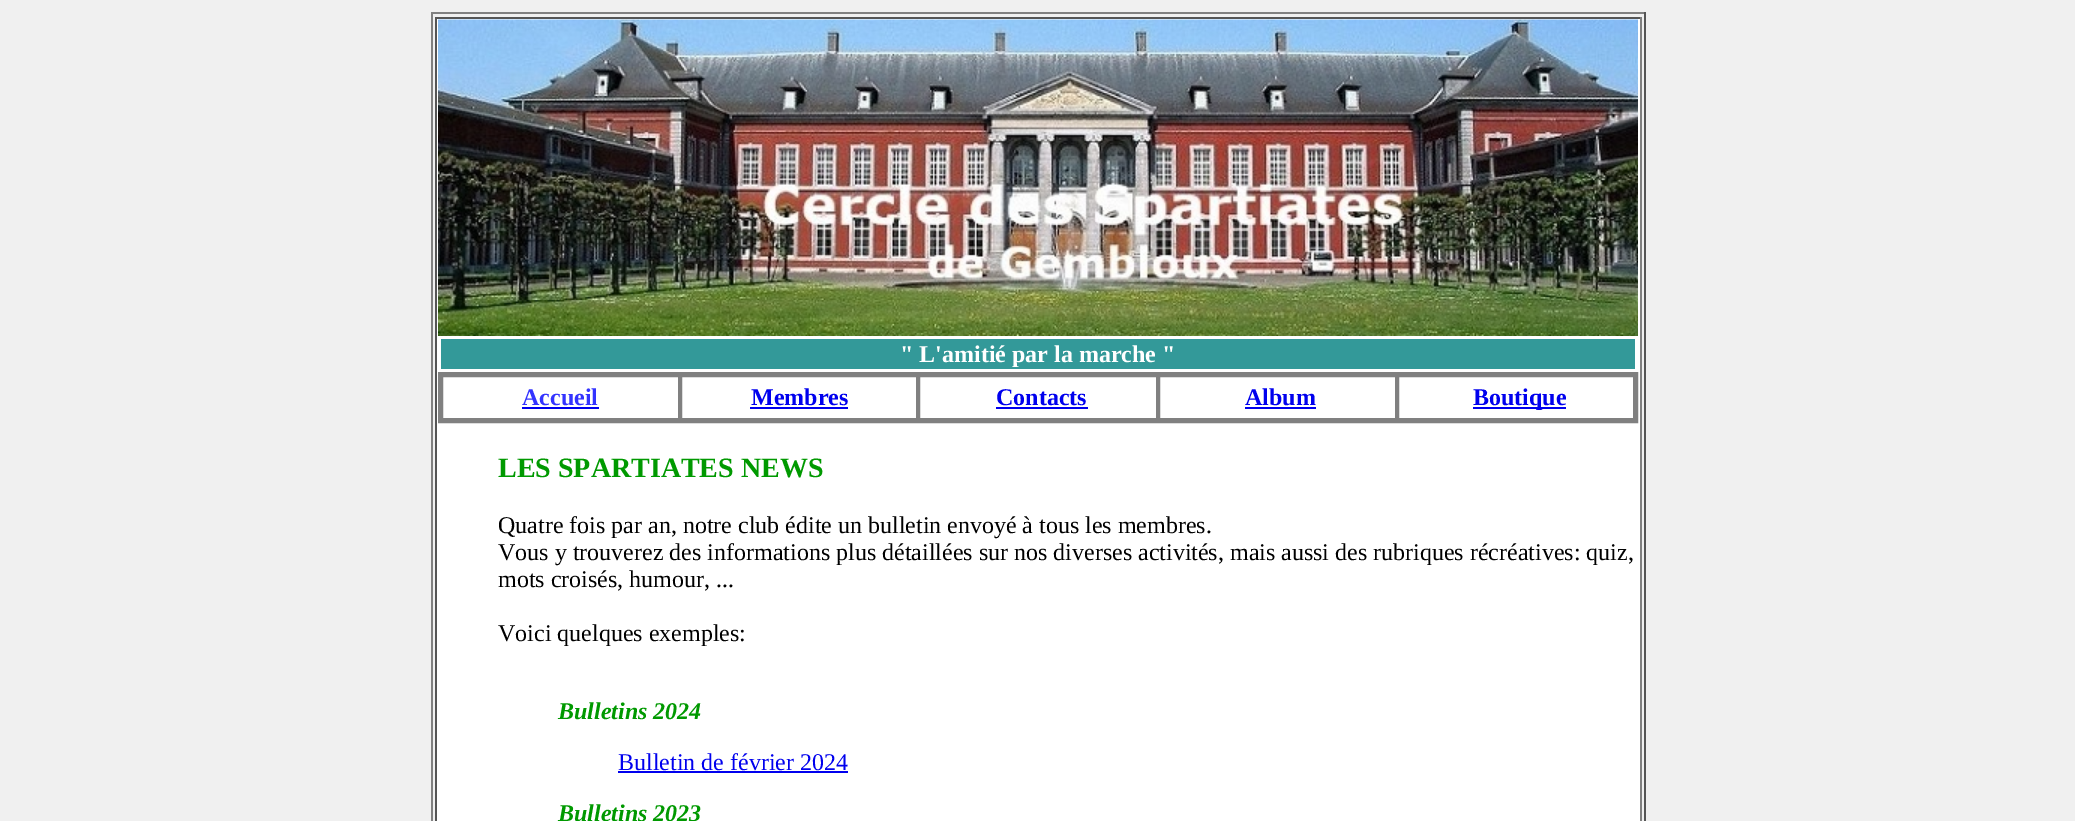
%!PS
<< /PageSize [2075 821] >> setpagedevice
/rgb { dup -16 bitshift 255 div exch dup -8 bitshift 255 and 255 div exch 255 and 255 div setrgbcolor } def
/font { [ exch dup neg 0 0 3 -1 roll 0 0 ] selectfont } def
/text { moveto show } def
/picture { 5 dict begin { /h /w /y /x /name } { exch def } forall
  gsave x y translate w h scale
  w h 8 [w 0 0 h 0 0] name (r) file false 3 colorimage grestore end } def
0 821 translate 1 -1 scale
4 setmiterlimit
/s1 { /LiberationSerif-Bold 24 font 16#FFFFFF rgb } def
/s2 { /LiberationSerif-Bold 24 font 16#3333FF rgb } def
/s3 { /LiberationSerif-Bold 24 font 16#0000EE rgb } def
/s4 { /LiberationSerif-Bold 28 font 16#009900 rgb } def
/s5 { /LiberationSerif-Regular 24 font 16#000000 rgb } def
/s6 { /LiberationSerif-BoldItalic 24 font 16#009900 rgb } def
/s7 { /LiberationSerif-Regular 24 font 16#0000EE rgb } def
16#F0F0F0 rgb
0 0 2075 821 rectfill
16#808080 rgb
431 12 1215 2 rectfill
16#555555 rgb
1644 12 2 809 rectfill
16#808080 rgb
431 12 2 809 rectfill
16#FFFFFF rgb
437 19 1203 802 rectfill
16#555555 rgb
435 17 1206 2 rectfill
16#808080 rgb
1640 17 2 804 rectfill
16#555555 rgb
435 17 2 804 rectfill
(pic1.raw) 438 19 1200 317 picture
16#339999 rgb
441 339 1194 30 rectfill
s1
(" L'amitié par la marche ") 900 362 text
16#808080 rgb
3 setlinewidth
439.5 373.5 1197 48 rectstroke
2 setlinewidth
442 376 237 43 rectstroke
s2
(Accueil) 522 405 text
16#0000EE rgb
522 407 77 2 rectfill
16#808080 rgb
681 376 236 43 rectstroke
s3
(Membres) 751 405 text
750 407 98 2 rectfill
16#808080 rgb
919 376 238 43 rectstroke
s3
(Contacts) 996 405 text
996 407 92 2 rectfill
16#808080 rgb
1159 376 237 43 rectstroke
s3
(Album) 1245 405 text
1245 407 71 2 rectfill
16#808080 rgb
1398 376 236 43 rectstroke
16#0000EE rgb
1473 407 93 2 rectfill
(Boutique) 1473 405 text
s4
(LES SPARTIATES NEWS) 498 477 text
s5
(Quatre fois par an, notre club édite un bulletin envoyé à tous les membres.) 498 533 text
(Vous y trouverez des informations plus détaillées sur nos diverses activités, mais aussi des rubriques récréatives: quiz,) 498 560 text
(mots croisés, humour, ...) 498 587 text
(Voici quelques exemples:) 498 641 text
s6
(Bulletins 2024) 558 719 text
s7
(Bulletin de février 2024) 618 770 text
618 771 230 2 rectfill
s6
(Bulletins 2023) 558 821 text
showpage
